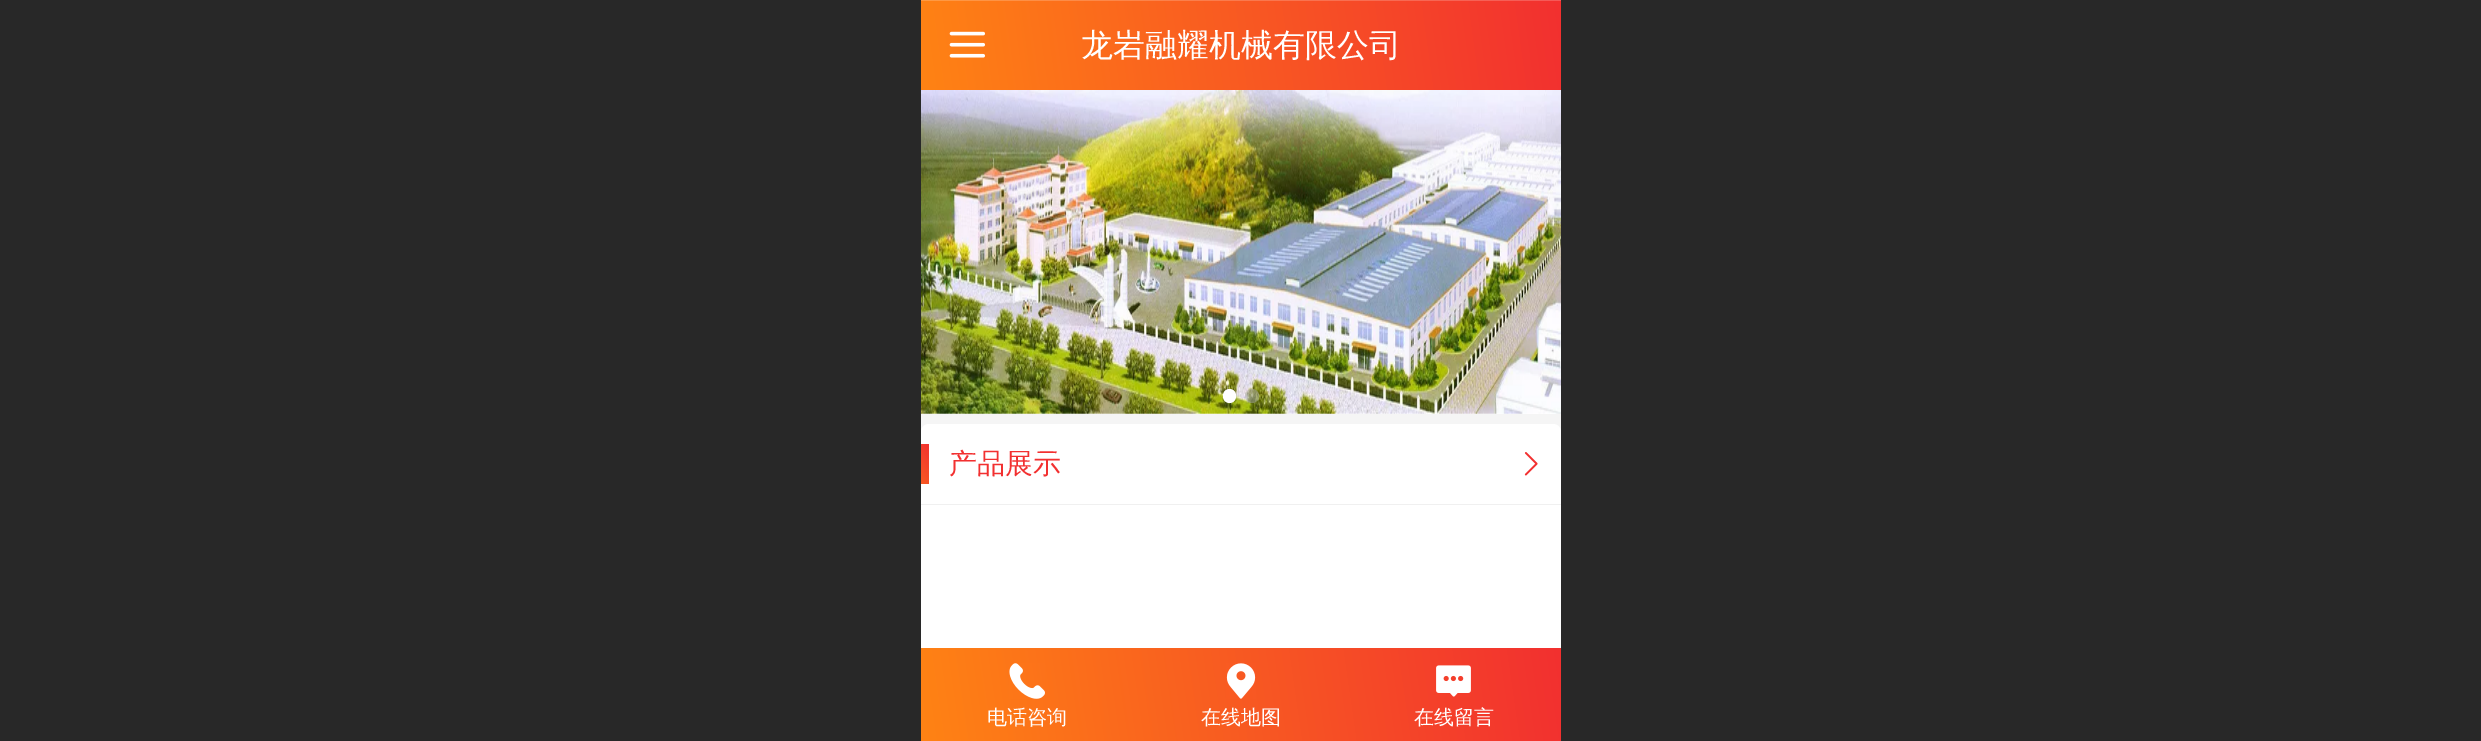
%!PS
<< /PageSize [2481 741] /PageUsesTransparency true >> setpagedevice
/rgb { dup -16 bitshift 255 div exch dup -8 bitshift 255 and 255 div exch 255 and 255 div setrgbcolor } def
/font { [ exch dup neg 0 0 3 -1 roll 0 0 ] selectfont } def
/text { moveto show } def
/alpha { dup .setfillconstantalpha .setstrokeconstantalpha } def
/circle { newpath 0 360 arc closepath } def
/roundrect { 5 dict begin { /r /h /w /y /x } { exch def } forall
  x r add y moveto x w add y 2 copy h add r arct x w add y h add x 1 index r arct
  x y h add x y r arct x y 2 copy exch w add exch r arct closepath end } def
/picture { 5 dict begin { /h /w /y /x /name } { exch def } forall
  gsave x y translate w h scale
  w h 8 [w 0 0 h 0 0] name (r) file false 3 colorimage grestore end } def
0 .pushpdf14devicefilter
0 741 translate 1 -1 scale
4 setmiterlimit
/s1 { /WenQuanYiZenHei-Medium 32 font 16#FFFFFF rgb } def
/s2 { /WenQuanYiZenHei-Medium 28 font 16#F23030 rgb } def
/s3 { /WenQuanYiZenHei-Medium 20 font 16#FFFFFF rgb } def
16#FFFFFF rgb
0 0 2481 741 rectfill
16#282828 rgb
0 0 921 741 rectfill
gsave 921 1 moveto 1561 1 lineto 1561 90 lineto 921 90 lineto closepath clip newpath
<< /ShadingType 2 /ColorSpace /DeviceRGB /Coords [921 90 1561 0] /Extend [true true] /Function << /FunctionType 2 /Domain [0 1] /C0 [1 0.514 0.078] /C1 [0.949 0.188 0.188] /N 1 >> >> shfill grestore
(pic1.raw) 949 31 36 27 picture
gsave 921 0 moveto 1561 0 lineto 1561 1 lineto 921 1 lineto closepath clip newpath
<< /ShadingType 2 /ColorSpace /DeviceRGB /Coords [921 90 1561 0] /Extend [true true] /Function << /FunctionType 2 /Domain [0 1] /C0 [1 0.612 0.263] /C1 [0.961 0.349 0.349] /N 1 >> >> shfill grestore
s1
(龙岩融耀机械有限公司) 1081 56 text
(pic2.raw) 921 90 640 324 picture
1223 389 13 14 6.5 roundrect fill
0.5 alpha
16#ABABAB rgb
1252 396 7 circle fill
1 alpha
16#F5F5F5 rgb
921 414 640 18 rectfill
16#FFFFFF rgb
929 424 moveto 1553 424 lineto 1557.5 424 1561 427.5 1561 432 curveto 1561 505 lineto 921 505 lineto 921 432 lineto 921 427.5 924.5 424 929 424 curveto closepath fill
16#F0F0F0 rgb
921 504 640 1 rectfill
gsave 921 444 moveto 929 444 lineto 929 484 lineto 921 484 lineto closepath clip newpath
<< /ShadingType 2 /ColorSpace /DeviceRGB /Coords [879 484 931 444] /Extend [true true] /Function << /FunctionType 2 /Domain [0 1] /C0 [1 0.514 0.078] /C1 [0.949 0.188 0.188] /N 1 >> >> shfill grestore
s2
(产品展示) 949 473 text
(pic3.raw) 1524 452 14 24 picture
gsave 921 648 moveto 1561 648 lineto 1561 741 lineto 921 741 lineto closepath clip newpath
<< /ShadingType 2 /ColorSpace /DeviceRGB /Coords [921 741 1561 648] /Extend [true true] /Function << /FunctionType 2 /Domain [0 1] /C0 [1 0.514 0.078] /C1 [0.949 0.188 0.188] /N 1 >> >> shfill grestore
(pic4.raw) 1009 663 36 36 picture
s3
(电话咨询) 987 724 text
(pic5.raw) 1226 663 30 36 picture
(在线地图) 1201 724 text
(pic6.raw) 1436 665 35 32 picture
(在线留言) 1414 724 text
16#282828 rgb
1561 0 920 741 rectfill
.poppdf14devicefilter showpage
